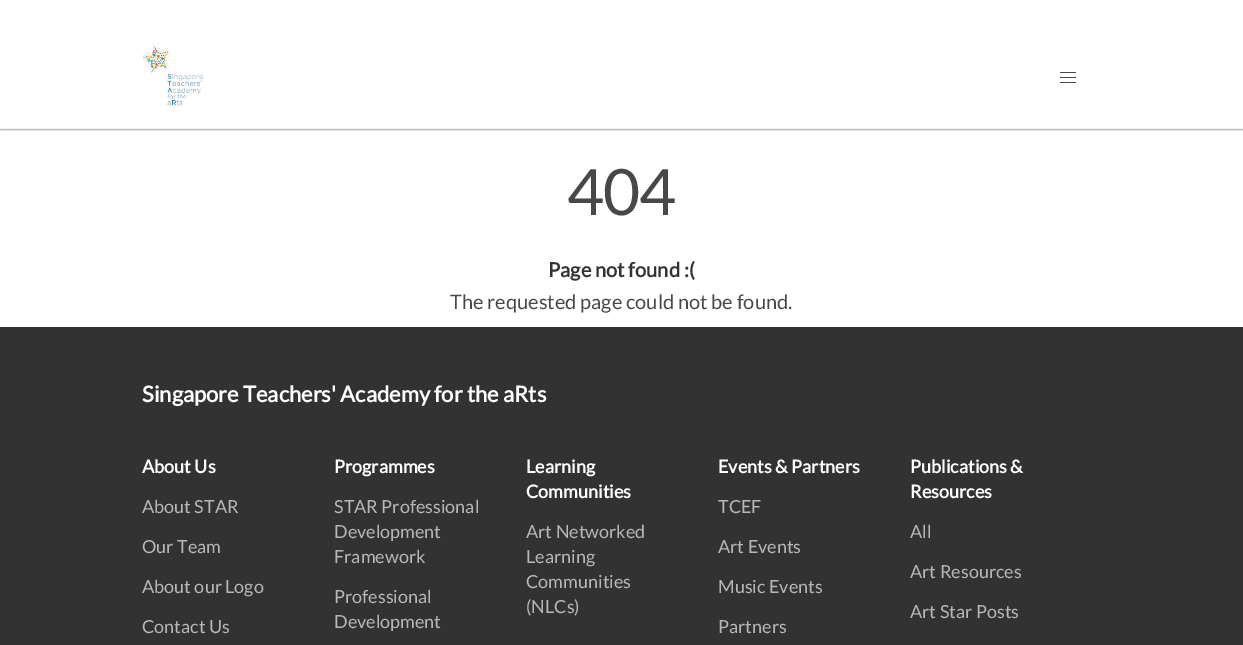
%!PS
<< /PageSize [1243 645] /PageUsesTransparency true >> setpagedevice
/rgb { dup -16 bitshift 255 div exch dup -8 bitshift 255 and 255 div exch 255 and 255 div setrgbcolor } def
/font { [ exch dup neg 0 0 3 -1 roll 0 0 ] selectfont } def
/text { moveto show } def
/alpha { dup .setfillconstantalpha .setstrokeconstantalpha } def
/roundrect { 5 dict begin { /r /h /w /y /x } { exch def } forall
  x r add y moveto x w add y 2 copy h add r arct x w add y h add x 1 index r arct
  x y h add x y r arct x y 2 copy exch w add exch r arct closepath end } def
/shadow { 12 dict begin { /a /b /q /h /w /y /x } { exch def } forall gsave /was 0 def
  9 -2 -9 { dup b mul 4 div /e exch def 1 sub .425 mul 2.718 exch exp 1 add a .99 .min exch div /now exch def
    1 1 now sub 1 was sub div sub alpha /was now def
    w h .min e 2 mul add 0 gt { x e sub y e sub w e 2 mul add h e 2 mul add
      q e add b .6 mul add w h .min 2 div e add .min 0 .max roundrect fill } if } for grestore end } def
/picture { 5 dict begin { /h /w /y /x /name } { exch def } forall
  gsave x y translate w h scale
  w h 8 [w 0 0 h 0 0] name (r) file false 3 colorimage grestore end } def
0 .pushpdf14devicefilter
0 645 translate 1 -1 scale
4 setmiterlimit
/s1 { /Lato-Bold 20 font 16#323232 rgb } def
/s2 { /Lato-Regular 20 font 16#484848 rgb } def
/s3 { /Lato-Bold 22 font 16#FFFFFF rgb } def
/s4 { /Lato-Bold 18 font 16#FFFFFF rgb } def
/s5 { /Lato-Regular 18 font 16#B7B7B7 rgb } def
16#FFFFFF rgb
0 0 1243 645 rectfill
gsave
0 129 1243 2 rectclip
16#000000 rgb
0 -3 1243 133 0 1 0.24 shadow
0 -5 1243 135 0 1.5 0.12 shadow
grestore
16#F0F0F0 rgb
0 128 1243 1 rectfill
(pic1.raw) 143 43 61 63 picture
16#484848 rgb
1060 72 16 1 rectfill
1060 77 16 1 rectfill
1060 82 16 1 rectfill
/Lato-Regular 64 font
567 215 moveto -1 0 (404) ashow
s1
(Page not found :\() 548 277 text
s2
(The requested page could not be found.) 450 309 text
16#323232 rgb
0 327 1243 318 rectfill
s3
(Singapore Teachers' Academy for the aRts) 142 402 text
s4
(About Us) 142 473 text
s5
(About STAR) 142 513 text
(Our Team) 142 553 text
(About our Logo) 142 593 text
(Contact Us) 142 633 text
s4
(Programmes) 334 473 text
s5
(STAR Professional) 334 513 text
(Development) 334 538 text
(Framework) 334 563 text
(Professional) 334 603 text
(Development) 334 628 text
s4
(Learning) 526 473 text
(Communities) 526 498 text
s5
(Art Networked) 526 538 text
(Learning) 526 563 text
(Communities) 526 588 text
(\(NLCs\)) 526 613 text
s4
(Events & Partners) 718 473 text
s5
(TCEF) 718 513 text
(Art Events) 718 553 text
(Music Events) 718 593 text
(Partners) 718 633 text
s4
(Publications &) 910 473 text
(Resources) 910 498 text
s5
(All) 910 538 text
(Art Resources) 910 578 text
(Art Star Posts) 910 618 text
.poppdf14devicefilter showpage
